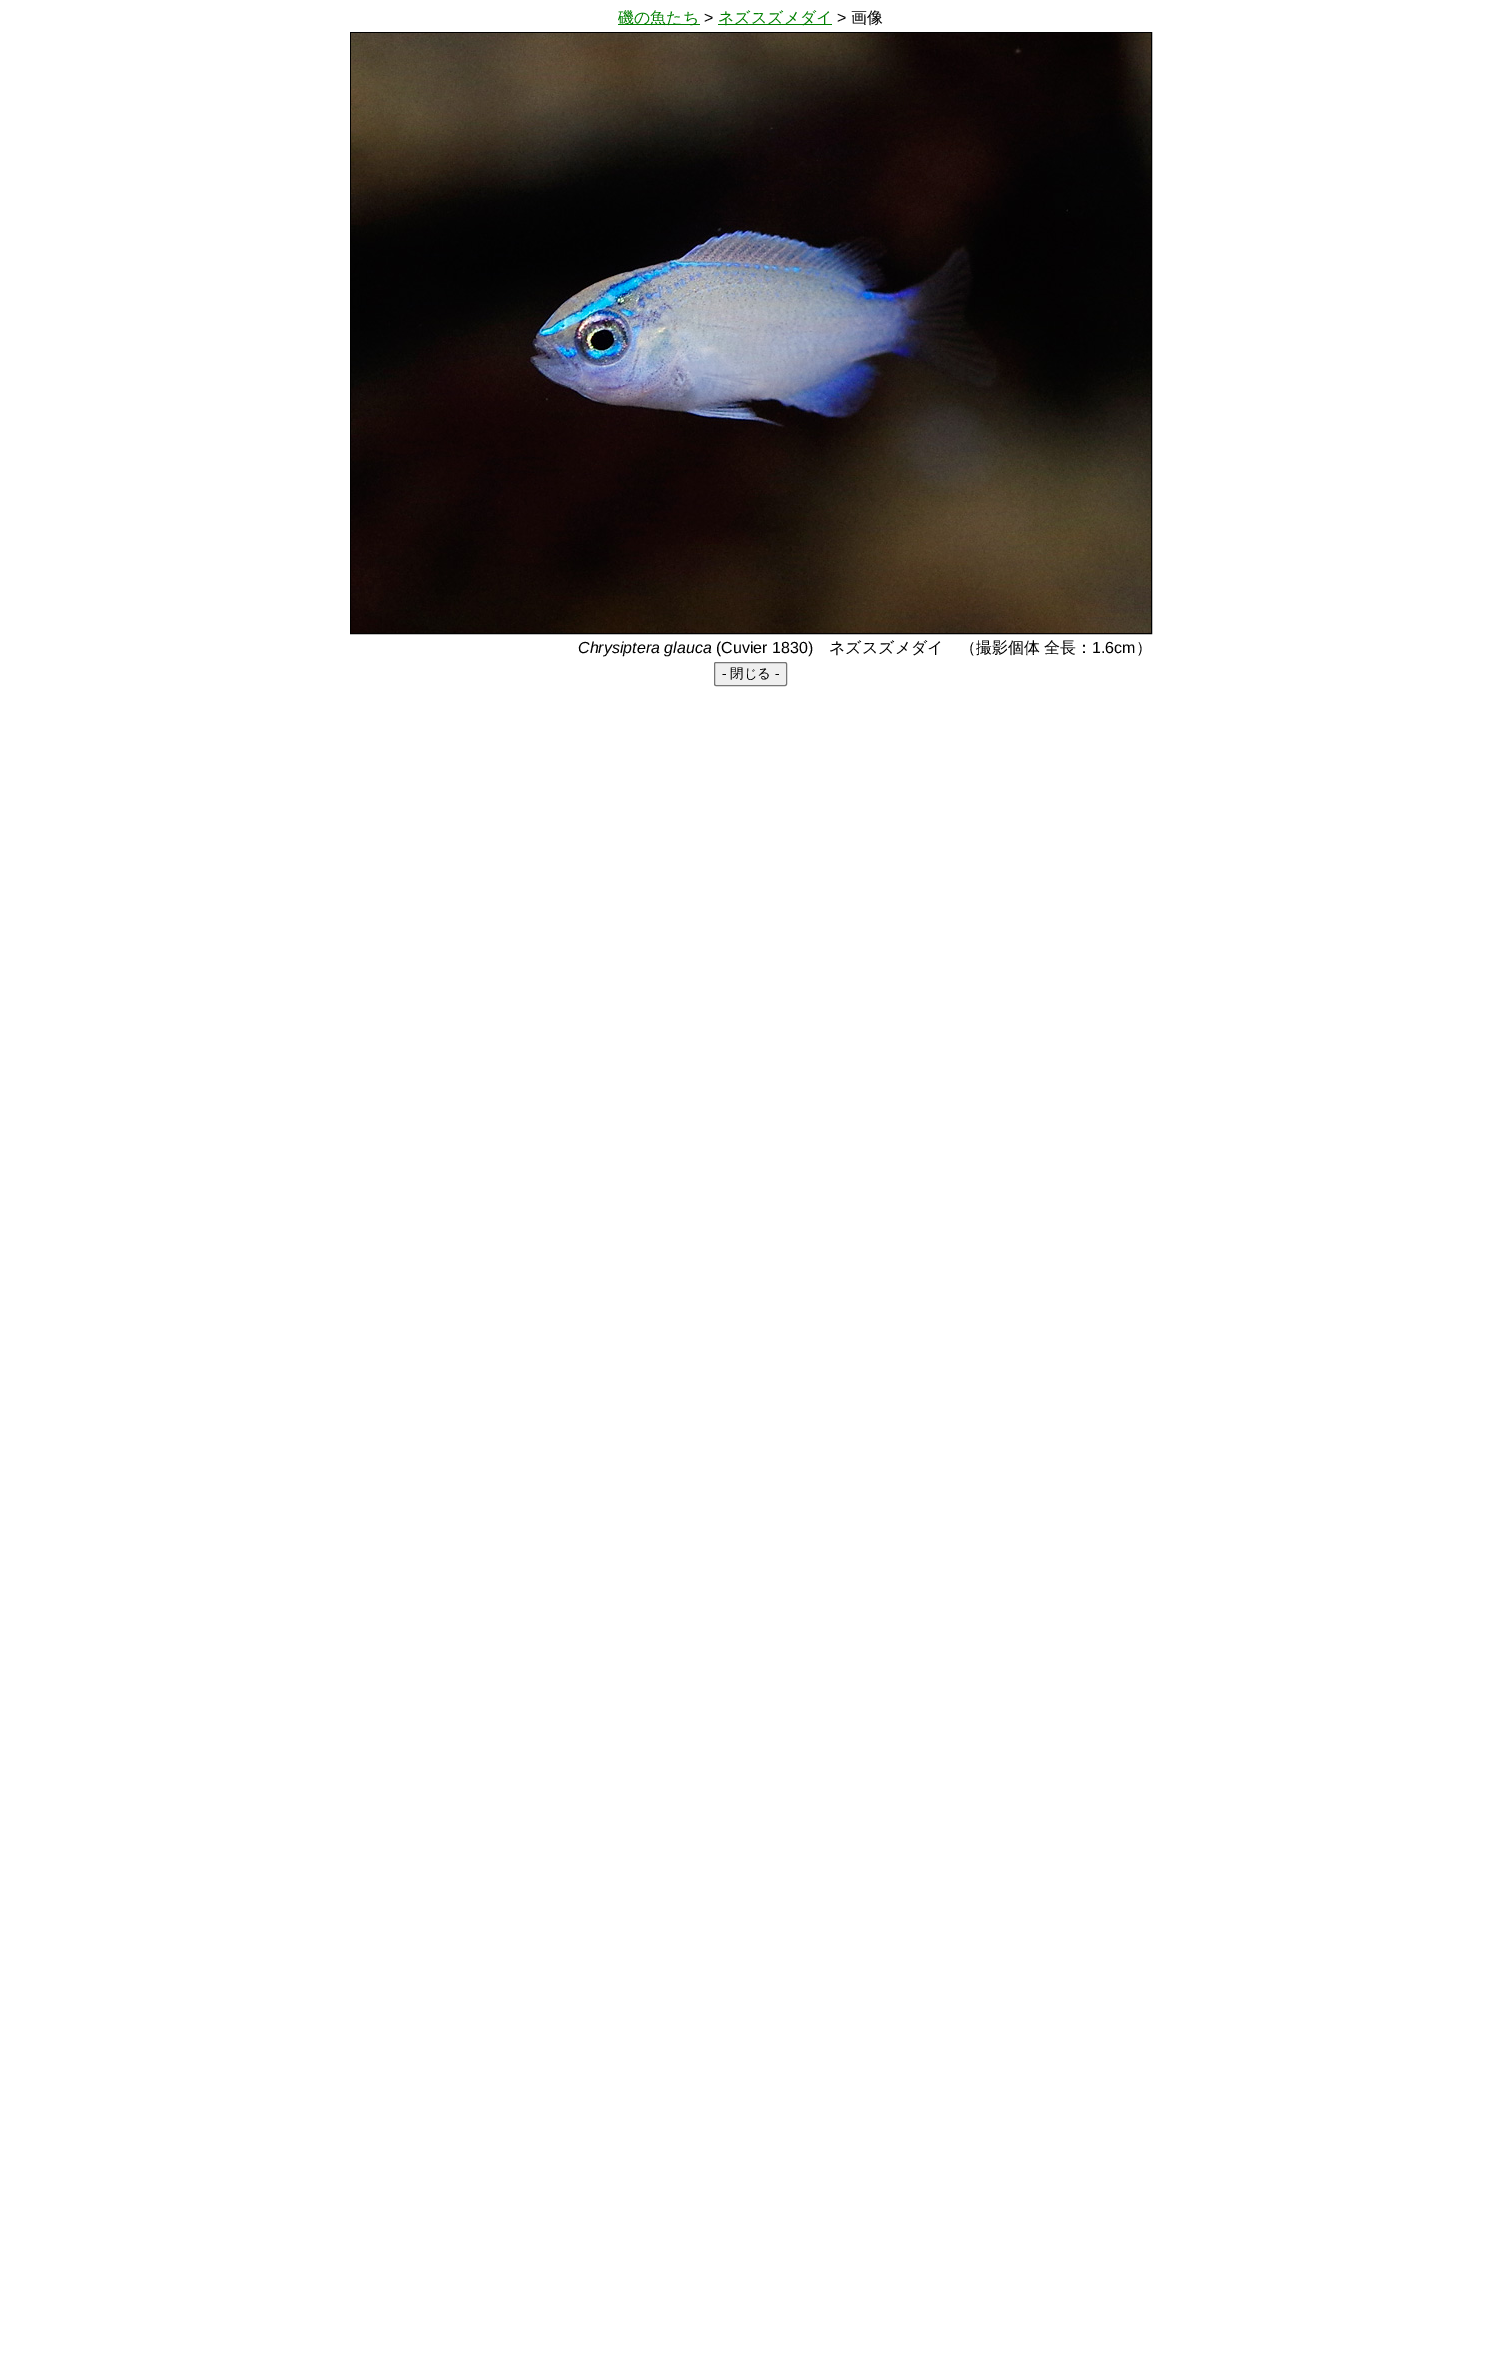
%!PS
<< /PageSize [1501 2353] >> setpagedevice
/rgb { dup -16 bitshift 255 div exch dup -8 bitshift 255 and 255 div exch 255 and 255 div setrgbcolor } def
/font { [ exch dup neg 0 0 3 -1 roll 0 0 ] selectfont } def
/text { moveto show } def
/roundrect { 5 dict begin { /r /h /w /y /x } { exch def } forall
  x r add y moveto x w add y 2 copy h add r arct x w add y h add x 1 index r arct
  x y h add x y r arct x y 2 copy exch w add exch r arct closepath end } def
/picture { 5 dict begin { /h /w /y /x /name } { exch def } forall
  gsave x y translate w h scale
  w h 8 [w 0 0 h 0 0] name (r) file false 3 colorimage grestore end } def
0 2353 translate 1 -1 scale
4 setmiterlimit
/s1 { /WenQuanYiZenHei-Medium 16 font 16#008000 rgb } def
/s2 { /LiberationSans-Regular 16 font 16#000000 rgb } def
/s3 { /WenQuanYiZenHei-Medium 16 font 16#000000 rgb } def
/s4 { /LiberationSans-Italic 16 font 16#000000 rgb } def
/s5 { /LiberationSans-Regular 13.5 font 16#000000 rgb } def
/s6 { /WenQuanYiZenHei-Medium 13.5 font 16#000000 rgb } def
16#FFFFFF rgb
0 0 1501 2353 rectfill
16#008000 rgb
618 24 82 1 rectfill
s1
(磯の魚たち) 618 23 text
s2
(>) 704 23 text
16#008000 rgb
718 24 114 1 rectfill
s1
(ネズスズメダイ) 718 23 text
s2
(>) 837 23 text
s3
(画像) 851 23 text
350.5 32.5 801 601 rectstroke
(pic1.raw) 351 33 800 600 picture
s4
(Chrysiptera glauca) 578 653 text
s2
(\(Cuvier 1830\)) 716 653 text
s3
(ネズスズメダイ　（撮影個体) 829 653 text
(全長：) 1044 653 text
s2
(1.6cm) 1092 653 text
s3
(）) 1136 653 text
16#EFEFEF rgb
714.5 662.5 72 23 1.5 roundrect gsave fill grestore
16#767676 rgb
stroke
s5
(-) 722 678 text
s6
(閉じる) 730 678 text
s5
(-) 775 678 text
showpage
